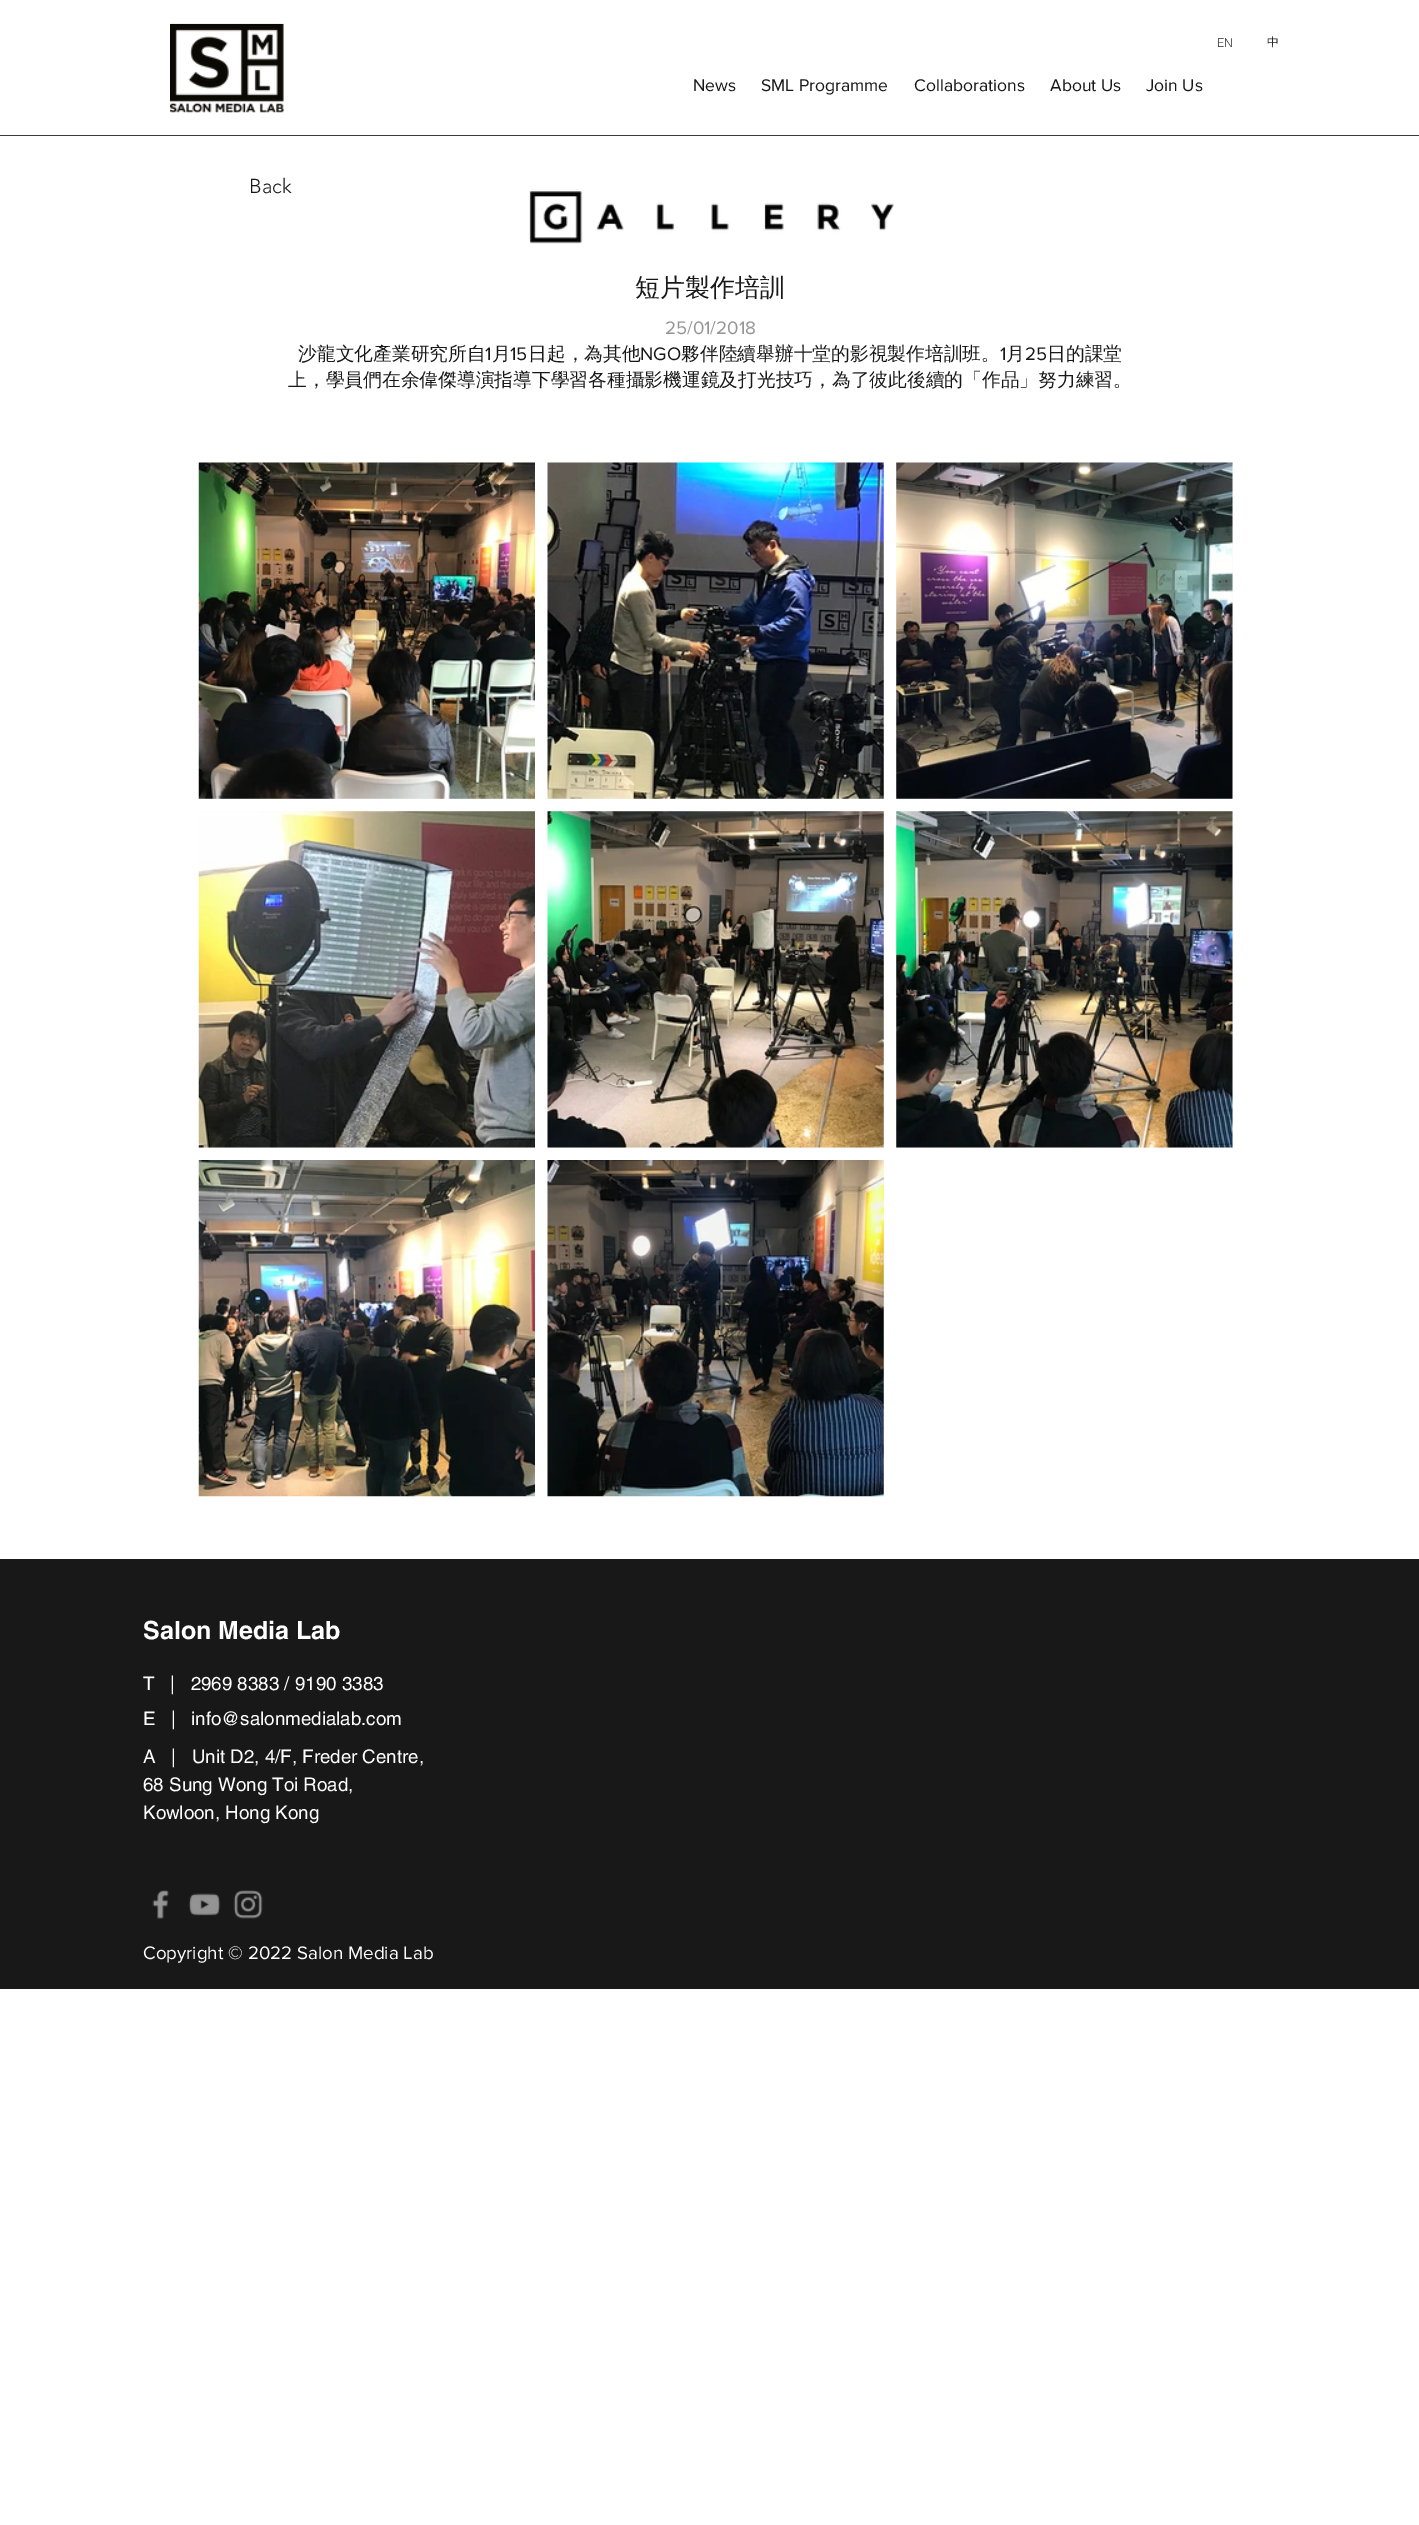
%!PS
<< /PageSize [1419 2525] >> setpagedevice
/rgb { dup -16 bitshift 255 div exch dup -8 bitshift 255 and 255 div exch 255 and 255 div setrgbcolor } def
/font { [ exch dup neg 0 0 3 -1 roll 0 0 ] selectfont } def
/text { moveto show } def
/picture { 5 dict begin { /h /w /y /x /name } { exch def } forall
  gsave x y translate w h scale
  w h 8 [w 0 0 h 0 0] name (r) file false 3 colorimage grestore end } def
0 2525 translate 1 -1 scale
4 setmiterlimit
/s1 { /helvetica-Light 12 font 16#282626 rgb } def
/s2 { /WenQuanYiZenHei-Medium 12 font 16#282626 rgb } def
/s3 { /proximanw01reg-Regular 17.5 font 16#181818 rgb } def
/s4 { /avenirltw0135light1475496-Light 20 font 16#181818 rgb } def
/s5 { /WenQuanYiZenHei-Medium 25 font 16#181818 rgb } def
/s6 { /proximanw01reg-Regular 18.75 font 16#959595 rgb } def
/s7 { /WenQuanYiZenHei-Medium 18.75 font 16#181818 rgb } def
/s8 { /proximanw01reg-Regular 18.75 font 16#181818 rgb } def
/s9 { /helvetica-Bold 25 font 16#FFFFFF rgb } def
/s10 { /helvetica-Regular 18.75 font 16#FFFFFF rgb } def
/s11 { /proximanw01reg-Regular 18.75 font 16#FFFFFF rgb } def
16#FFFFFF rgb
0 0 1419 2525 rectfill
(pic1.raw) 170 23 114 90 picture
s1
(EN) 1217 47 text
s2
(中) 1267 46 text
s3
(News) 693 91 text
(SML Programme) 761 91 text
(Collaborations) 914 91 text
(About Us) 1050 91 text
(Join Us) 1146 91 text
16#3B3B3B rgb
0 135 1419 1 rectfill
s4
(Back) 249 193 text
(pic2.raw) 529 189 365 55 picture
s5
(短片製作培訓) 635 296 text
s6
(25/01/2018) 665 334 text
s7
(沙龍文化產業研究所自) 298 360 text
s8
(1) 485 360 text
s7
(月) 492 360 text
s8
(15) 510 360 text
s7
(日起，為其他) 528 360 text
s8
(NGO) 640 360 text
s7
(夥伴陸續舉辦十堂的影視製作培訓班。) 681 360 text
s8
(1) 1000 360 text
s7
(月) 1006 360 text
s8
(25) 1025 360 text
s7
(日的課堂) 1047 360 text
(上，學員們在余偉傑導演指導下學習各種攝影機運鏡及打光技巧，為了彼此後續的「作品」努力練習。) 288 386 text
(pic3.raw) 198 462 337 337 picture
16#F7F7F7 rgb
548 463 336 336 rectfill
(pic4.raw) 547 462 337 337 picture
896 463 337 336 rectfill
(pic5.raw) 896 462 337 337 picture
199 811 336 337 rectfill
(pic6.raw) 198 811 337 337 picture
548 811 336 337 rectfill
(pic7.raw) 547 811 337 337 picture
896 811 337 337 rectfill
(pic8.raw) 896 811 337 337 picture
(pic9.raw) 198 1160 337 337 picture
(pic10.raw) 547 1160 337 337 picture
16#181818 rgb
0 1559 1419 430 rectfill
s9
(Salon Media Lab) 143 1639 text
s10
(T   |   2969 8383 / 9190 3383) 143 1690 text
(E   |) 143 1725 text
(info@salonmedialab.com) 191 1725 text
(A   |   Unit D2, 4/F, Freder Centre,) 143 1763 text
(68 Sung Wong Toi Road,) 143 1791 text
(Kowloon, Hong Kong) 143 1819 text
(pic11.raw) 152 1890 17 29 picture
(pic12.raw) 188 1893 33 23 picture
(pic13.raw) 233 1890 30 29 picture
s11
(Copyright © 2022 Salon Media Lab) 143 1959 text
showpage
